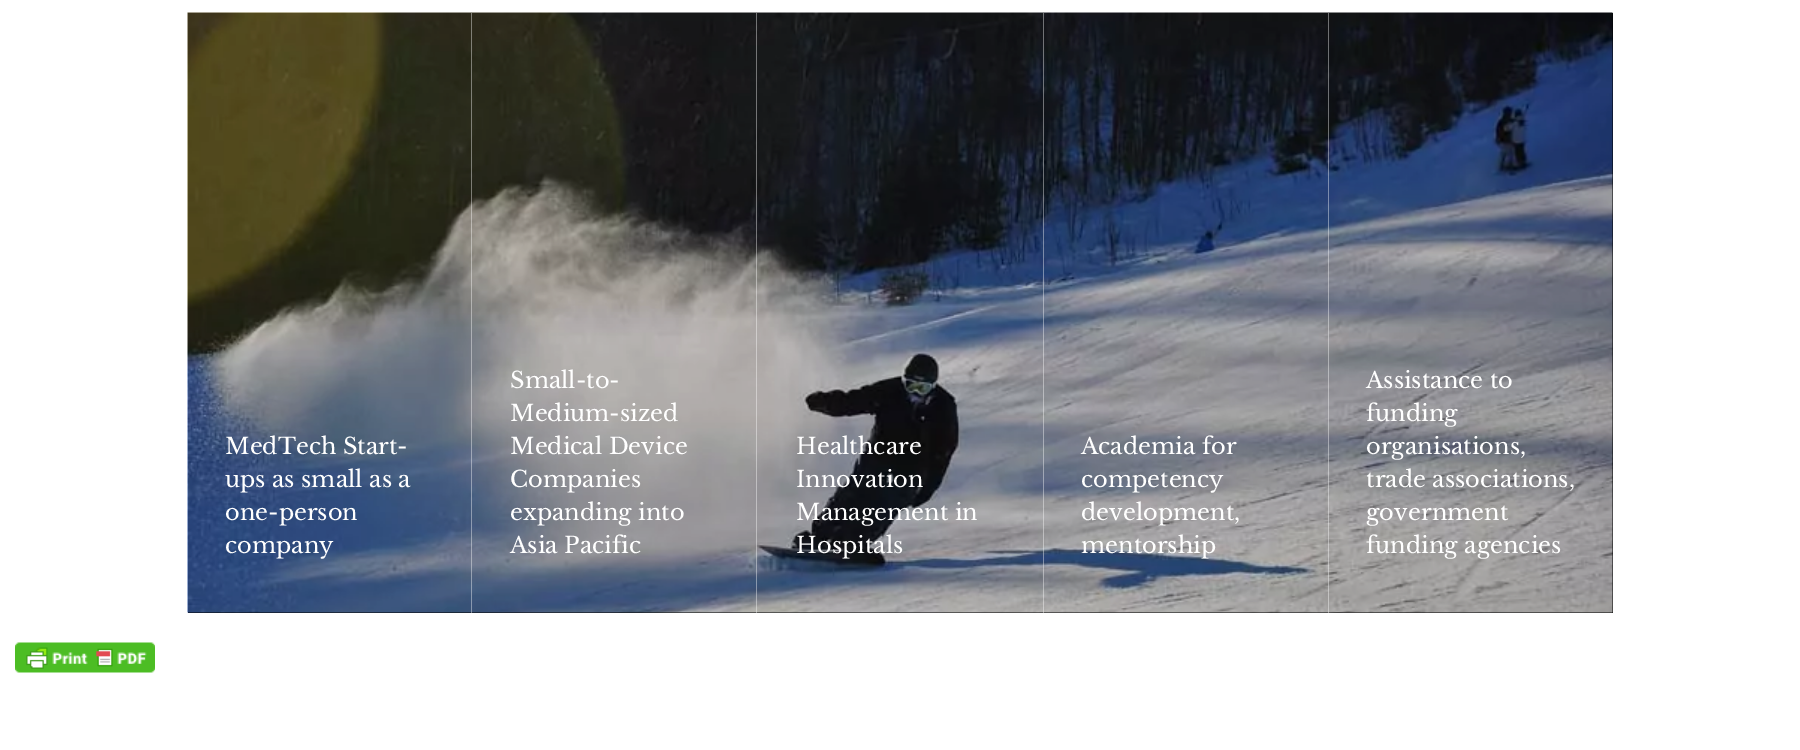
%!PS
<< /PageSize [1800 750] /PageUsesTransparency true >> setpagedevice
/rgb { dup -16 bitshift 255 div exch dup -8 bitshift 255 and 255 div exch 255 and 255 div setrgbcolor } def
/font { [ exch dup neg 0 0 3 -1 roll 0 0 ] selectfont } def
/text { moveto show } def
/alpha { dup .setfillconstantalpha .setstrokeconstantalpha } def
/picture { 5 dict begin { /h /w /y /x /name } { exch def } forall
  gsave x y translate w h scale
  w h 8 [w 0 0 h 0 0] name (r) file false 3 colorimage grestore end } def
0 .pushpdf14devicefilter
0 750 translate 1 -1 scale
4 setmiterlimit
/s1 { /LibreBaskerville-Regular 22.5 font 16#FFFFFF rgb } def
16#FFFFFF rgb
0 0 1800 750 rectfill
16#000000 rgb
188 13 1425 600 rectfill
(pic1.raw) 187 12 1426 601 picture
0.4 alpha
16#FFFFFF rgb
471 13 1 600 rectfill
1 alpha
s1
(MedTech Start-) 225 454 text
(ups as small as a) 225 487 text
(one-person) 225 520 text
(company) 225 553 text
0.4 alpha
756 13 1 600 rectfill
1 alpha
(Small-to-) 510 388 text
(Medium-sized) 510 421 text
(Medical Device) 510 454 text
(Companies) 510 487 text
(expanding into) 510 520 text
(Asia Pacific) 510 553 text
0.4 alpha
1043 13 1 600 rectfill
1 alpha
(Healthcare) 796 454 text
(Innovation) 796 487 text
(Management in) 796 520 text
(Hospitals) 796 553 text
0.4 alpha
1328 13 1 600 rectfill
1 alpha
(Academia for) 1081 454 text
(competency) 1081 487 text
(development,) 1081 520 text
(mentorship) 1081 553 text
(Assistance to) 1366 388 text
(funding) 1366 421 text
(organisations,) 1366 454 text
(trade associations,) 1366 487 text
(government) 1366 520 text
(funding agencies) 1366 553 text
(pic2.raw) 15 642 140 31 picture
.poppdf14devicefilter showpage
